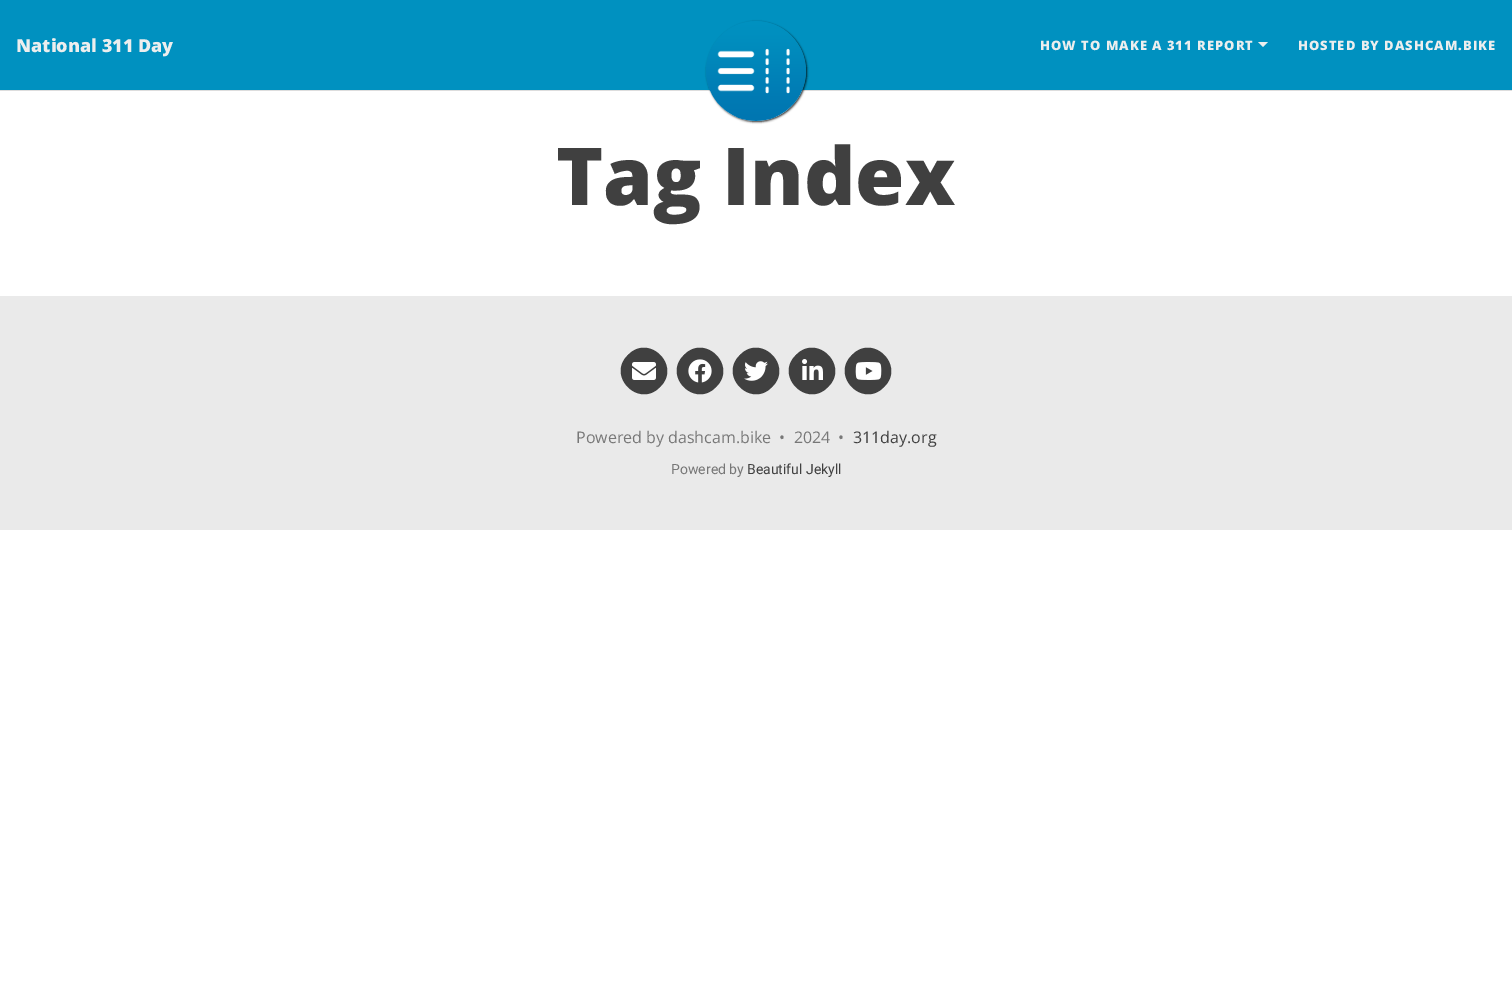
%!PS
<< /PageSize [1512 984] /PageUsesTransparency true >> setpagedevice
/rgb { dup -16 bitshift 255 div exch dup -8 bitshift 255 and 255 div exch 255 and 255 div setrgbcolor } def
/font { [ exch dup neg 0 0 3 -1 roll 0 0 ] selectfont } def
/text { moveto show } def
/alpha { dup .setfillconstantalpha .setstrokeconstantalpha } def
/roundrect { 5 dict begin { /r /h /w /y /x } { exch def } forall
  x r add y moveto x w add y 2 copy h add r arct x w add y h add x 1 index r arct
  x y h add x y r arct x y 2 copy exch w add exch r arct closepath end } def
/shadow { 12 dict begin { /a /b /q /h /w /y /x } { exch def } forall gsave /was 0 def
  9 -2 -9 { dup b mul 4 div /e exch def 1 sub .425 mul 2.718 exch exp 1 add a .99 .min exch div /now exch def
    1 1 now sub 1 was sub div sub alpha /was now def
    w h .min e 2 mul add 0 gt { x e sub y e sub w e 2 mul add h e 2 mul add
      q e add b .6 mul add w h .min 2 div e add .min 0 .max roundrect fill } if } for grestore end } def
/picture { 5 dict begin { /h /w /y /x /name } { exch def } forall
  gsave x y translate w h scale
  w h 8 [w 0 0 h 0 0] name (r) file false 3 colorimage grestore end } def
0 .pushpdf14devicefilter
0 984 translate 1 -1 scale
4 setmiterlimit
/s1 { /OpenSans-ExtraBold 18 font 16#ECEEEE rgb } def
/s2 { /OpenSans-ExtraBold 80 font 16#404040 rgb } def
/s3 { /OpenSans-Regular 16 font 16#777777 rgb } def
/s4 { /OpenSans-Regular 16 font 16#404040 rgb } def
/s5 { /Roboto-Regular 14 font 16#777777 rgb } def
/s6 { /Roboto-Regular 14 font 16#404040 rgb } def
16#FFFFFF rgb
0 0 1512 984 rectfill
16#0091C0 rgb
0 0 1512 90 rectfill
16#DDDDDD rgb
0 90 1512 1 rectfill
s1
(National 311 Day) 16 52 text
16#000000 rgb
707 22 100 100 50 1 0.8 shadow
(pic1.raw) 706 21 100 100 picture
/OpenSans-ExtraBold 13 font
16#ECEEEE rgb
1040 50 moveto 1 0 (HOW TO MAKE A 311 REPORT) ashow
1258 42 moveto 1268 42 lineto 1263 47 lineto closepath fill
1298 50 moveto 1 0 (HOSTED BY DASHCAM.BIKE) ashow
s2
(Tag Index) 556 205 text
16#EAEAEA rgb
0 296 1512 234 rectfill
16#404040 rgb
628 355 moveto 649 333 682 366 660 387 curveto 639 409 606 376 628 355 curveto closepath fill
(pic2.raw) 632 362 24 18 picture
684 355 moveto 705 333 738 366 716 387 curveto 695 409 662 376 684 355 curveto closepath fill
(pic3.raw) 688 359 24 24 picture
740 355 moveto 761 333 794 366 772 387 curveto 751 409 718 376 740 355 curveto closepath fill
(pic4.raw) 744 361 24 20 picture
796 355 moveto 817 333 850 366 828 387 curveto 807 409 774 376 796 355 curveto closepath fill
(pic5.raw) 802 359 21 21 picture
852 355 moveto 873 333 906 366 884 387 curveto 863 409 830 376 852 355 curveto closepath fill
(pic6.raw) 855 362 27 18 picture
s3
(Powered by dashcam.bike) 576 443 text
(•) 779 443 text
(2024) 794 443 text
(•) 838 443 text
s4
(311day.org) 853 443 text
s5
(Powered by) 671 474 text
s6
(Beautiful Jekyll) 747 474 text
.poppdf14devicefilter showpage
